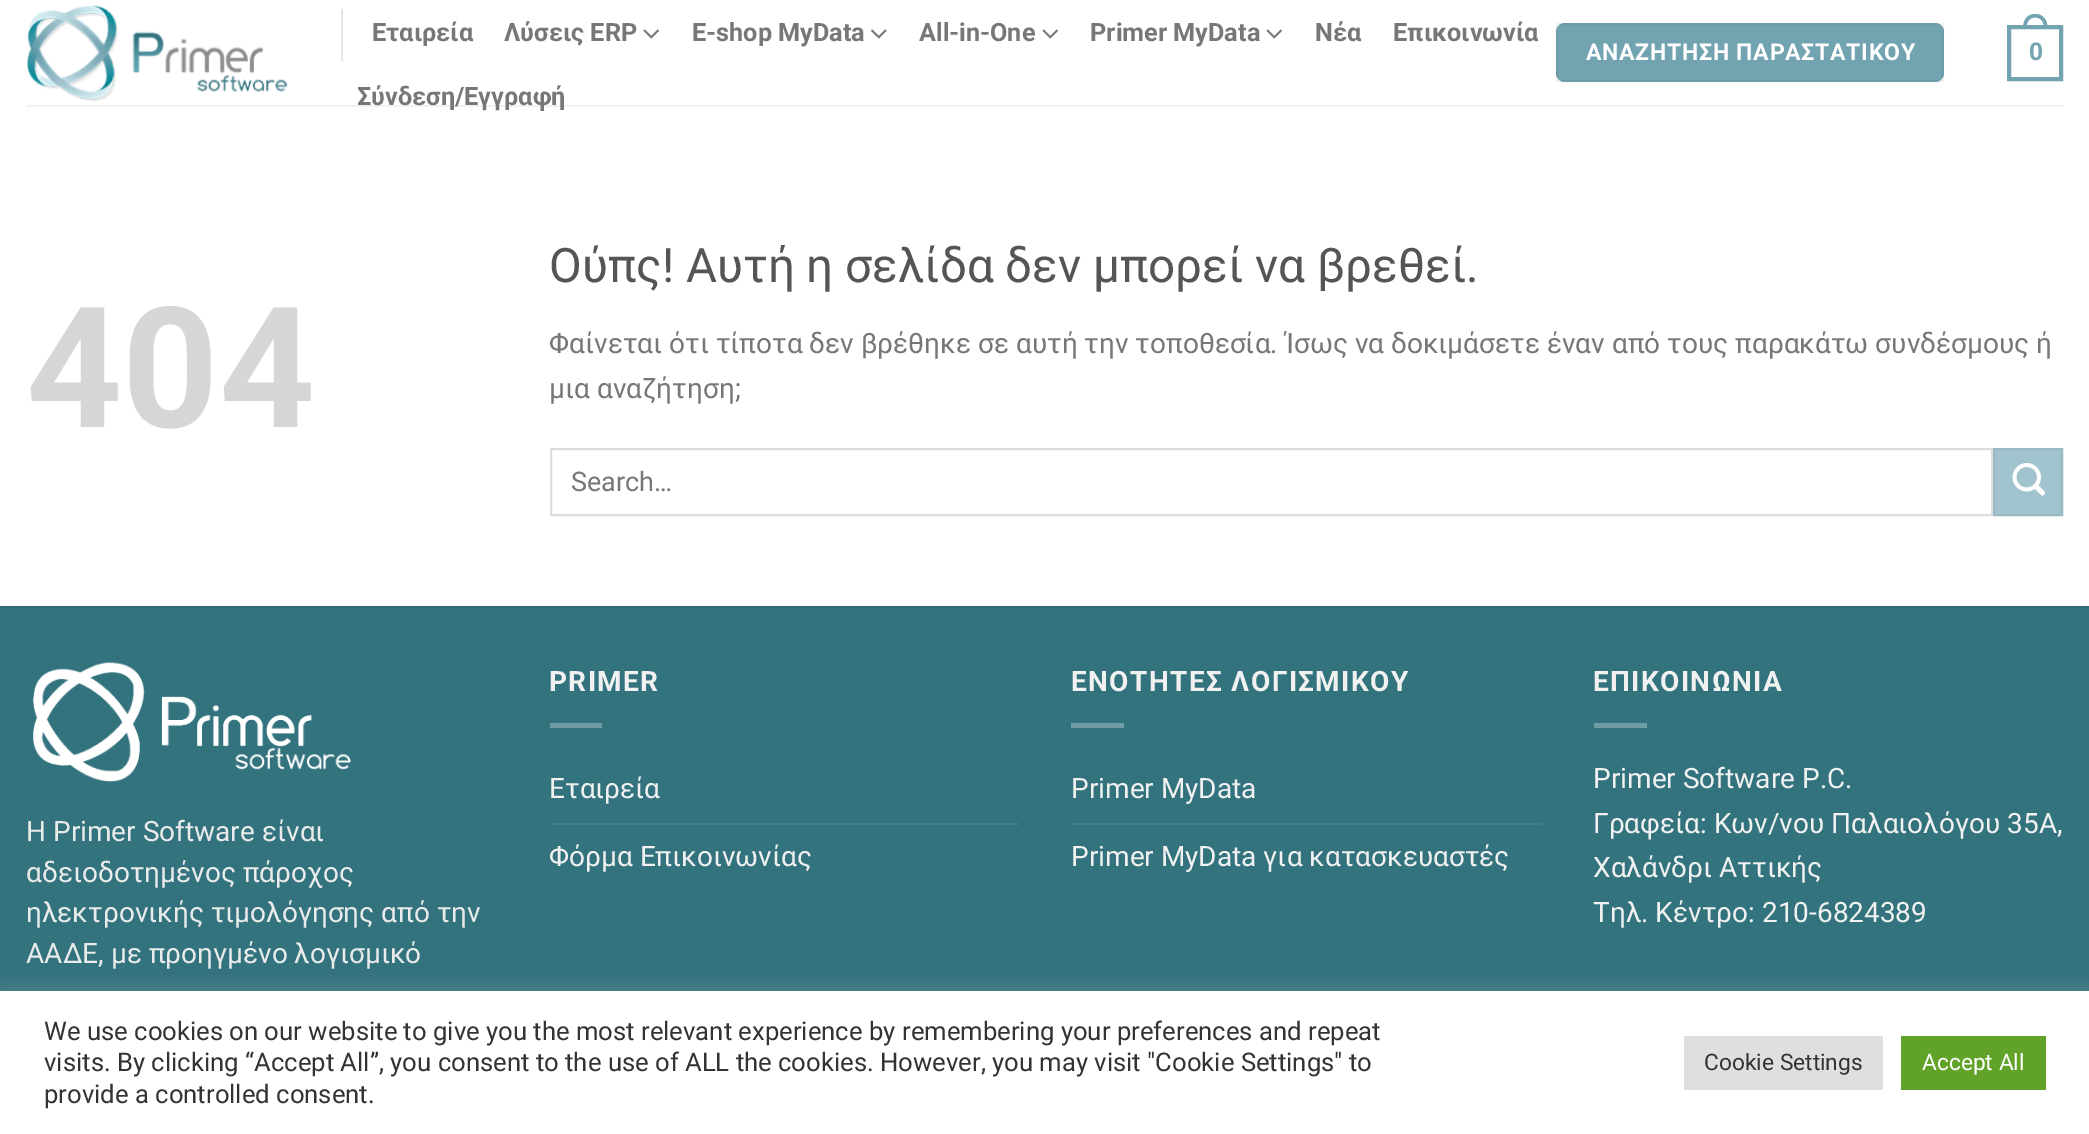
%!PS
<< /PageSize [2089 1134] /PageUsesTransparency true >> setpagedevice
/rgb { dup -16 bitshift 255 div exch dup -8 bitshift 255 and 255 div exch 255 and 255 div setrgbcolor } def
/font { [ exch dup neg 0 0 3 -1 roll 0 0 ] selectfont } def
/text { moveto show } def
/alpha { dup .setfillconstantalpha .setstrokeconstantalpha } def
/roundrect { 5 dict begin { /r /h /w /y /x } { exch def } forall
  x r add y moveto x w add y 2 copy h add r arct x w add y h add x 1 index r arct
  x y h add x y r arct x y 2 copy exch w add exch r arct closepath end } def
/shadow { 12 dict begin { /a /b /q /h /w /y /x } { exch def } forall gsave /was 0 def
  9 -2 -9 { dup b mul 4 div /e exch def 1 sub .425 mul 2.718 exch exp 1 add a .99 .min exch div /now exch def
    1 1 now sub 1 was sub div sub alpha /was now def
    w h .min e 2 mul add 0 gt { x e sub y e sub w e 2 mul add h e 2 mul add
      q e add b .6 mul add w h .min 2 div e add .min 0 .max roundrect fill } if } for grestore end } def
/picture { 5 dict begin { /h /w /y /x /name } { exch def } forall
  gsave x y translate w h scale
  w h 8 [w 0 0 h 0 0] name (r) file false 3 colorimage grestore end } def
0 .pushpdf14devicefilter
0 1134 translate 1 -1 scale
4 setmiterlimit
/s1 { /Roboto-Bold 25.25 font 16#777777 rgb } def
/s2 { /LiberationSans-Bold 25.25 font 16#71A4B0 rgb } def
/s3 { /Roboto-Bold 168 font 16#D6D6D6 rgb } def
/s4 { /Roboto-Regular 47.6 font 16#555555 rgb } def
/s5 { /Roboto-Regular 28 font 16#777777 rgb } def
/s6 { /Roboto-Regular 27 font 16#777777 rgb } def
/s7 { /Roboto-Regular 28 font 16#F1F1F1 rgb } def
/s8 { /Roboto-Regular 28 font 16#EAEBEB rgb } def
/s9 { /Roboto-Regular 25.67 font 16#333333 rgb } def
/s10 { /Roboto-Regular 22.75 font 16#333333 rgb } def
/s11 { /Roboto-Regular 22.75 font 16#FFFFFF rgb } def
16#FFFFFF rgb
0 0 2089 1134 rectfill
(pic1.raw) 27 5 261 97 picture
16#E6E6E6 rgb
341 9 2 52 rectfill
s1
(Εταιρεία) 372 41 text
(Λύσεις ERP) 504 41 text
(pic2.raw) 643 29 16 10 picture
(E-shop MyData) 692 41 text
(pic3.raw) 871 29 16 10 picture
(All-in-One) 919 41 text
(pic2.raw) 1042 29 16 10 picture
(Primer MyData) 1090 41 text
(pic2.raw) 1266 29 16 10 picture
(Νέα) 1315 41 text
(Επικοινωνία) 1393 41 text
(Σύνδεση/Εγγραφή) 357 105 text
16#71A4B0 rgb
1556 23 388 59 9 roundrect fill
0.05 alpha
16#000000 rgb
2 setlinewidth
1557 24 386 57 rectstroke
/Roboto-Bold 23.1 font
1 alpha
16#FFFFFF rgb
1586 60 moveto 0.7 0 (ΑΝΑΖΗΤΗΣΗ ΠΑΡΑΣΤΑΤΙΚΟΥ) ashow
16#71A4B0 rgb
4 setlinewidth
2009 27 52 52 rectstroke
2035 14 moveto 2043.5 14 2047.5 20.5 2047.5 28 curveto 2023 28 lineto 2023 20.5 2027 14 2035 14 curveto closepath 2035 17.5 moveto 2041.5 17.5 2044 22.5 2044 28 curveto 2026.5 28 lineto 2026.5 22.5 2029 17.5 2035 17.5 curveto closepath eofill
s2
(0) 2029 60 text
0.1 alpha
16#777777 rgb
26 105 2037 2 rectfill
1 alpha
s3
(404) 26 427 text
s4
(Ούπς! Αυτή η σελίδα δεν μπορεί να βρεθεί.) 549 282 text
s5
(Φαίνεται ότι τίποτα δεν βρέθηκε σε αυτή την τοποθεσία. Ίσως να δοκιμάσετε έναν από τους παρακάτω συνδέσμους ή) 549 353 text
(μια αναζήτηση;) 549 398 text
16#DDDDDD rgb
2 setlinewidth
551 449 1441 66 rectstroke
s6
(Search…) 571 491 text
16#A1C3CE rgb
1994 449 moveto 2062 449 lineto 2062 515 lineto 1994 515 lineto closepath gsave fill grestore
16#99B9C4 rgb
stroke
(pic4.raw) 2012 463 33 33 picture
16#33737E rgb
0 608 2089 383 rectfill
16#306D78 rgb
0 606 2089 2 rectfill
/Roboto-Bold 28 font
16#F1F1F1 rgb
549 691 moveto 1.4 0 (PRIMER) ashow
16#709DA5 rgb
550 723 52 5 rectfill
s7
(Εταιρεία) 549 798 text
16#437E88 rgb
550 823 469 2 rectfill
s7
(Φόρμα Επικοινωνίας) 549 866 text
/Roboto-Bold 28 font
1071 691 moveto 1.4 0 (ΕΝΟΤΗΤΕΣ ΛΟΓΙΣΜΙΚΟΥ) ashow
16#709DA5 rgb
1071 723 53 5 rectfill
s7
(Primer MyData) 1071 798 text
16#437E88 rgb
1071 823 471 2 rectfill
s7
(Primer MyData για κατασκευαστές) 1071 866 text
/Roboto-Bold 28 font
1593 691 moveto 1.4 0 (ΕΠΙΚΟΙΝΩΝΙΑ) ashow
16#709DA5 rgb
1594 723 53 5 rectfill
s7
(Primer Software P.C.) 1593 788 text
(Γραφεία: Κων/νου Παλαιολόγου 35Α,) 1593 833 text
(Χαλάνδρι Αττικής) 1593 877 text
(Τηλ. Κέντρο: 210-6824389) 1593 922 text
(pic5.raw) 33 662 318 120 picture
s8
(Η Primer Software είναι) 26 841 text
(αδειοδοτημένος πάροχος) 26 882 text
(ηλεκτρονικής τιμολόγησης από την) 26 922 text
(ΑΑΔΕ, με προηγμένο λογισμικό) 26 963 text
16#ACABAB rgb
0 989 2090 143 0 9 0.3 shadow
16#FFFFFF rgb
0 991 2089 143 rectfill
s9
(We use cookies on our website to give you the most relevant experience by remembering your preferences and repeat) 44 1040 text
(visits. By clicking “Accept All”, you consent to the use of ALL the cookies. However, you may visit "Cookie Settings" to) 44 1071 text
(provide a controlled consent.) 44 1103 text
16#DEDFE0 rgb
1684 1036 199 54 rectfill
s10
(Cookie Settings) 1704 1070 text
16#61A229 rgb
1901 1036 145 54 rectfill
s11
(Accept All) 1922 1070 text
.poppdf14devicefilter showpage
